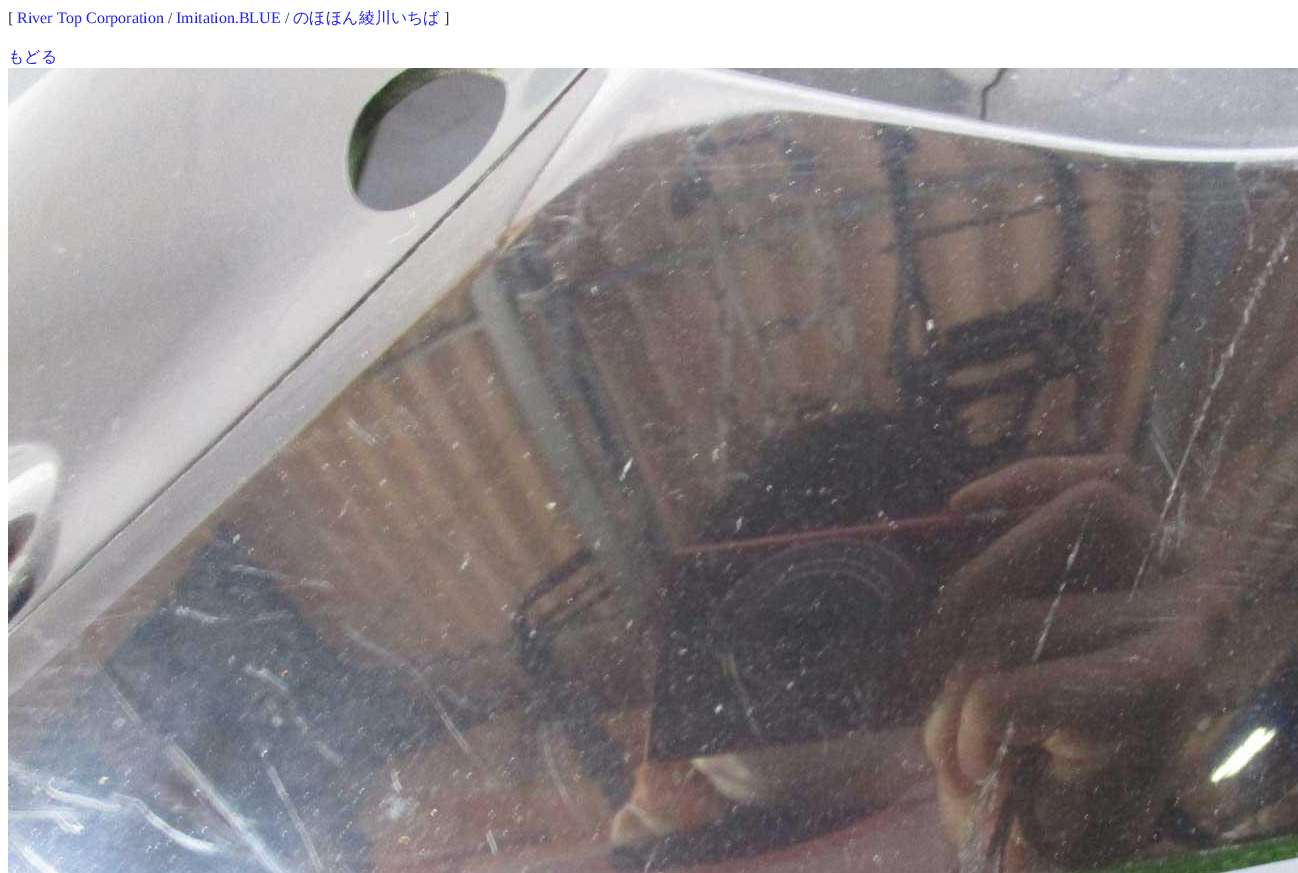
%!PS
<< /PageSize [1298 873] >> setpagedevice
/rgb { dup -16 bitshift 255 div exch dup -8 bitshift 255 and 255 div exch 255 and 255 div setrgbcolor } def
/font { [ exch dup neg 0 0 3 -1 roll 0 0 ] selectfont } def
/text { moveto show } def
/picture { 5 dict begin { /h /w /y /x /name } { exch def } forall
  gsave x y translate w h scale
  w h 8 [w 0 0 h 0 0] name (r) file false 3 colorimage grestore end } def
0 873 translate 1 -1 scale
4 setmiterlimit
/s1 { /LiberationSerif-Regular 16 font 16#333333 rgb } def
/s2 { /LiberationSerif-Regular 16 font 16#2222FF rgb } def
/s3 { /WenQuanYiZenHei-Medium 16 font 16#2222FF rgb } def
16#FFFFFF rgb
0 0 1298 873 rectfill
s1
([) 8 23 text
s2
(River Top Corporation) 17 23 text
s1
(/) 168 23 text
s2
(Imitation.BLUE) 176 23 text
s1
(/) 285 23 text
s3
(のほほん綾川いちば) 293 23 text
s1
(]) 444 23 text
s3
(もどる) 8 62 text
(pic1.raw) 8 68 1290 805 picture
showpage
